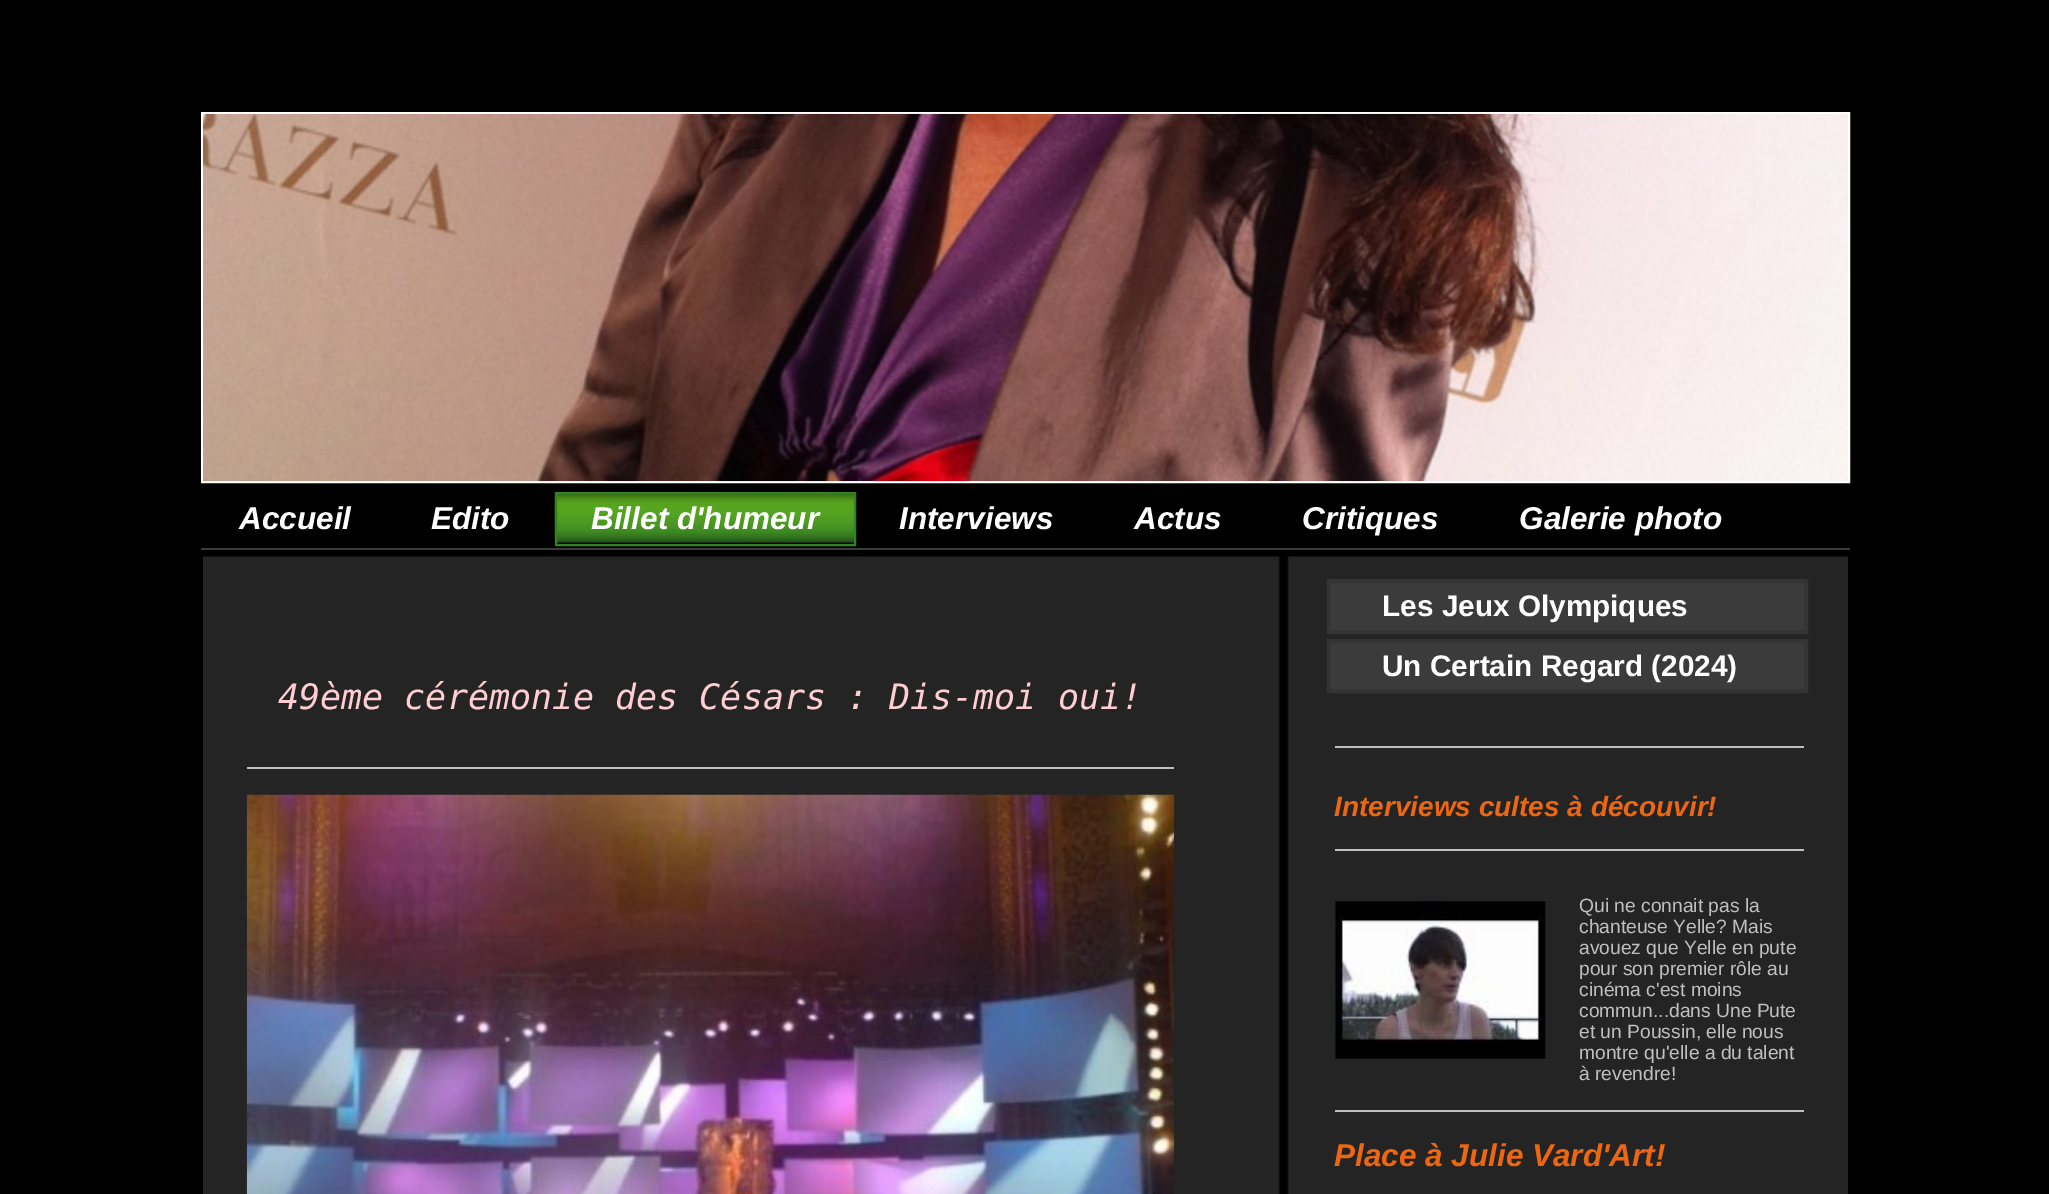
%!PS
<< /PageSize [2049 1194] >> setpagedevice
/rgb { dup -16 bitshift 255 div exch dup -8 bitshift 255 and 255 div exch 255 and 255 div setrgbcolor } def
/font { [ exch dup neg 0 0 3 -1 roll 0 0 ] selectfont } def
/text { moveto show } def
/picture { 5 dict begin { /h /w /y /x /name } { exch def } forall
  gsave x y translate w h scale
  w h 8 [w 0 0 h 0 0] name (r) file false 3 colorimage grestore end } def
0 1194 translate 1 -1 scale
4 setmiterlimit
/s1 { /LiberationSans-BoldItalic 31.5 font 16#FFFFFF rgb } def
/s2 { /DejaVuSansMono-Italic 35 font 16#FFCDD2 rgb } def
/s3 { /LiberationSans-Bold 29.75 font 16#FFFFFF rgb } def
/s4 { /LiberationSans-BoldItalic 28 font 16#ED6712 rgb } def
/s5 { /LiberationSans-Regular 19.25 font 16#BFBFBF rgb } def
/s6 { /LiberationSans-BoldItalic 31.5 font 16#ED6712 rgb } def
16#000000 rgb
0 0 2049 1194 rectfill
16#FFFFFF rgb
2 setlinewidth
202 113 1647 369 rectstroke
(pic1.raw) 203 113 1645 369 picture
s1
(Accueil) 239 529 text
(Edito) 431 529 text
(pic2.raw) 554 493 300 50 picture
16#348026 rgb
556 493 299 52 rectstroke
s1
(Billet d'humeur) 591 529 text
(Interviews) 899 529 text
(Actus) 1134 529 text
(Critiques) 1302 529 text
(Galerie photo) 1519 529 text
16#3B3B3B rgb
201 548 1649 2 rectfill
(pic3.raw) 203 556 1645 638 picture
s2
(49ème cérémonie des Césars : Dis-moi oui!) 278 709 text
16#BFBFBF rgb
247 767 927 2 rectfill
(pic4.raw) 246 794 929 400 picture
16#3B3B3B rgb
1330 583 474 47 rectfill
16#343434 rgb
1328 580 479 53 rectstroke
1329 582 476 49 rectstroke
s3
(Les Jeux Olympiques) 1382 616 text
16#3B3B3B rgb
1330 643 474 46 rectfill
16#343434 rgb
1328 640 479 52 rectstroke
1329 642 476 48 rectstroke
s3
(Un Certain Regard \(2024\)) 1382 676 text
16#BFBFBF rgb
1335 746 469 2 rectfill
s4
(Interviews cultes à découvir!) 1334 816 text
16#BFBFBF rgb
1335 849 469 2 rectfill
(pic5.raw) 1335 901 211 158 picture
s5
(Qui ne connait pas la) 1579 912 text
(chanteuse Yelle? Mais) 1579 933 text
(avouez que Yelle en pute) 1579 954 text
(pour son premier rôle au) 1579 975 text
(cinéma c'est moins) 1579 996 text
(commun...dans Une Pute) 1579 1017 text
(et un Poussin, elle nous) 1579 1038 text
(montre qu'elle a du talent) 1579 1059 text
(à revendre!) 1579 1080 text
1335 1110 469 2 rectfill
s6
(Place à Julie Vard'Art!) 1334 1166 text
showpage
